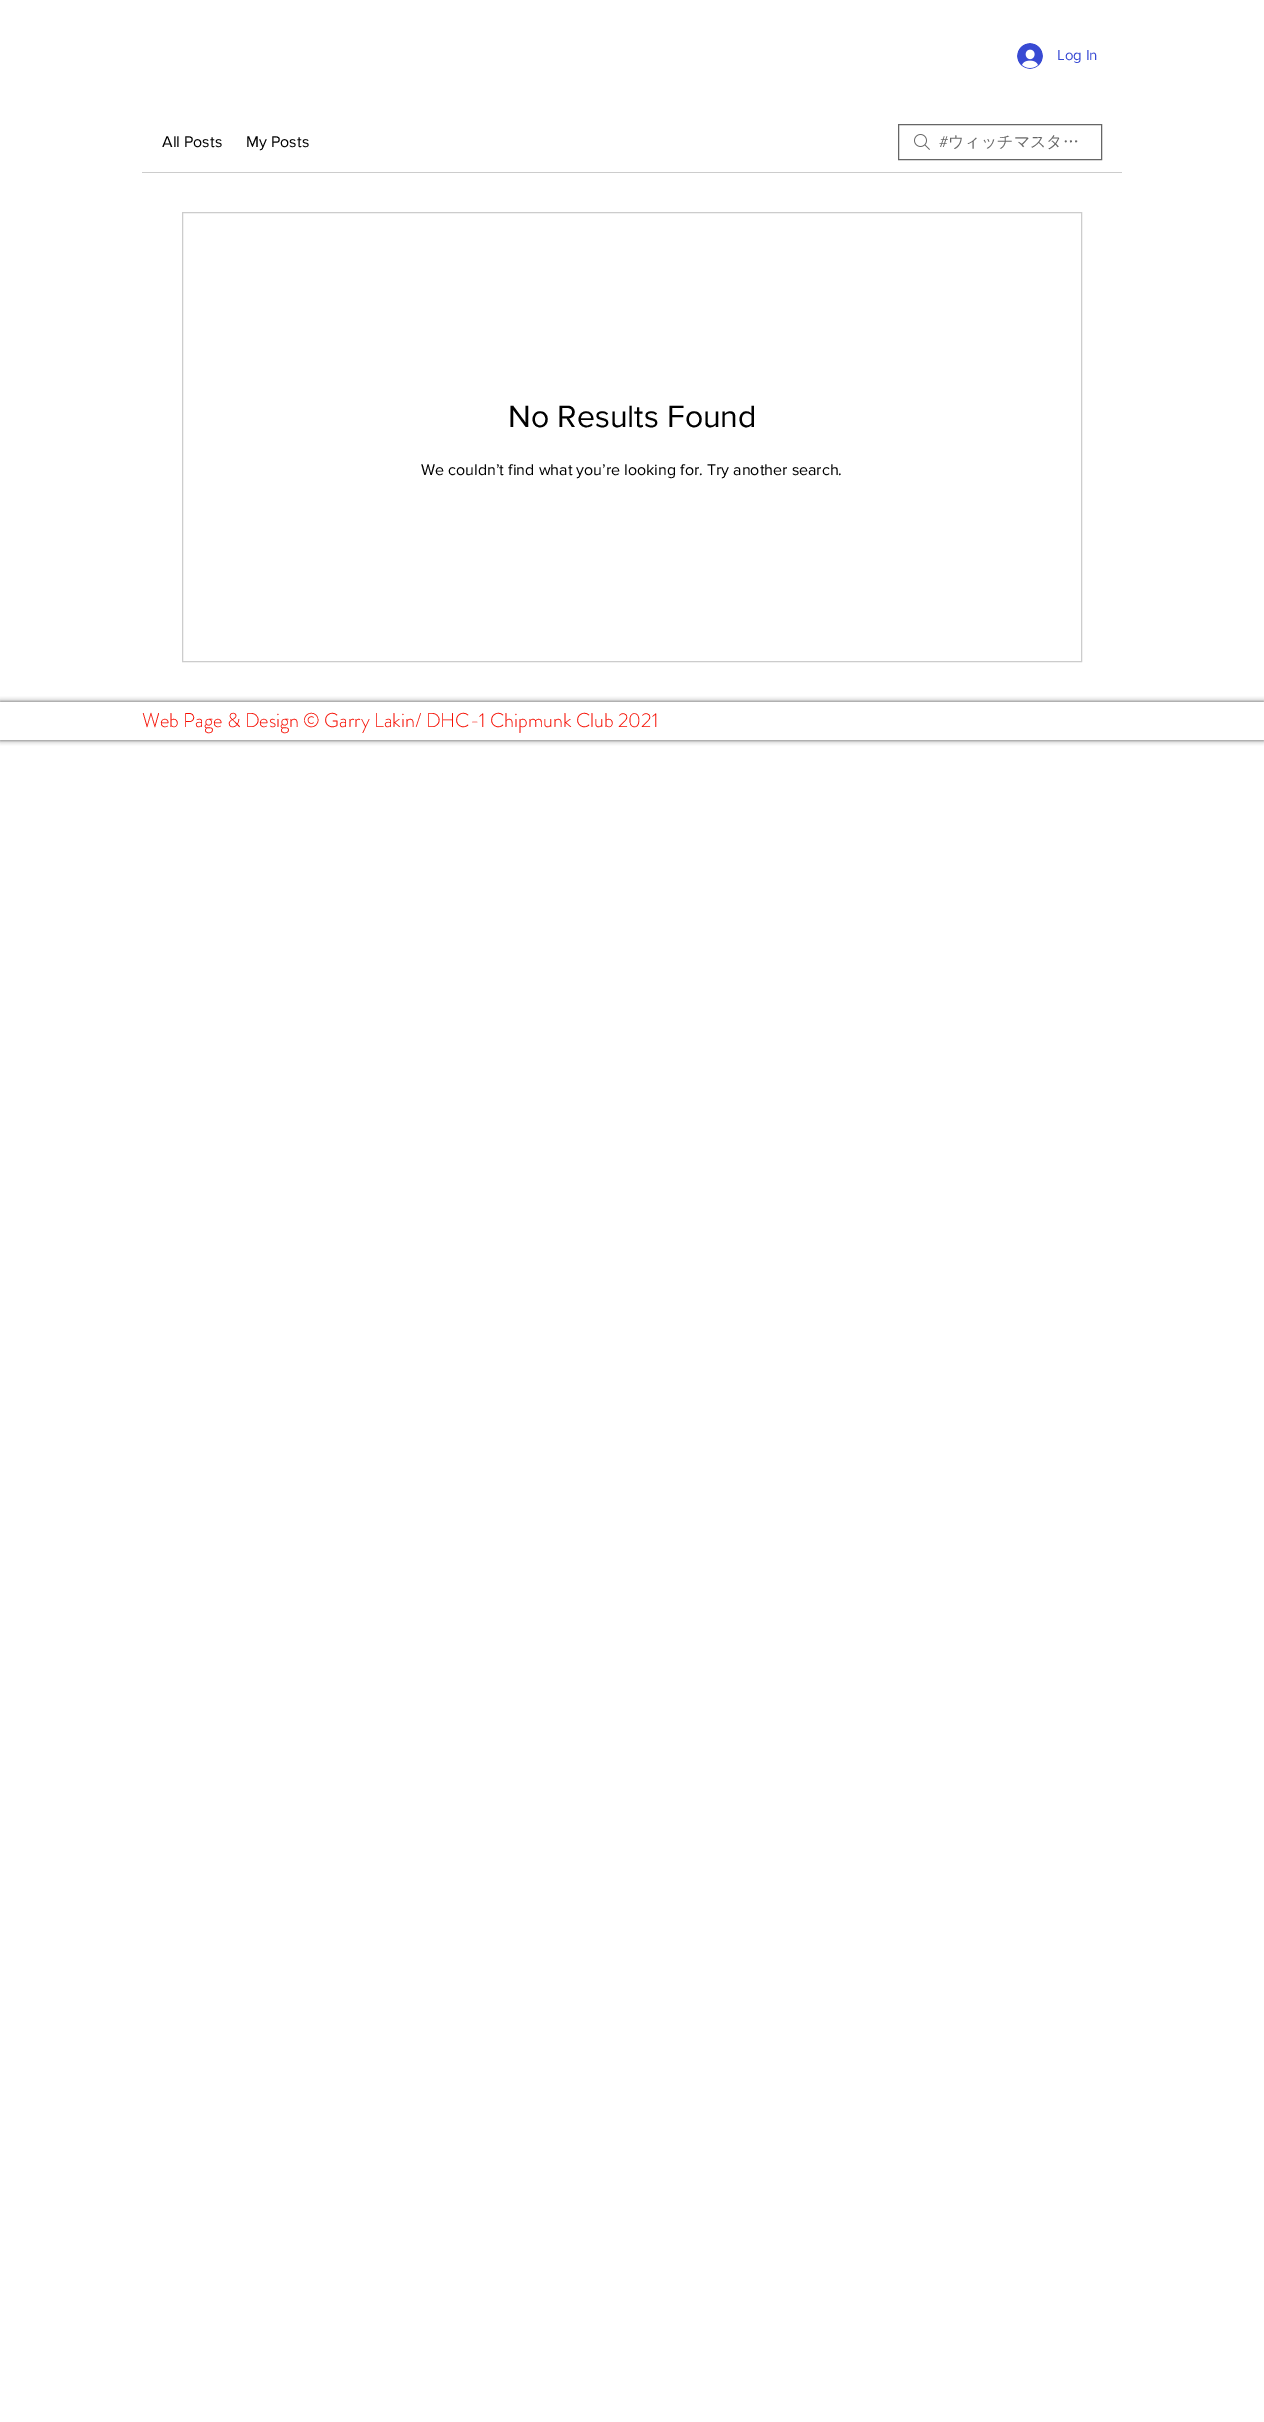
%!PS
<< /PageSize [1264 2422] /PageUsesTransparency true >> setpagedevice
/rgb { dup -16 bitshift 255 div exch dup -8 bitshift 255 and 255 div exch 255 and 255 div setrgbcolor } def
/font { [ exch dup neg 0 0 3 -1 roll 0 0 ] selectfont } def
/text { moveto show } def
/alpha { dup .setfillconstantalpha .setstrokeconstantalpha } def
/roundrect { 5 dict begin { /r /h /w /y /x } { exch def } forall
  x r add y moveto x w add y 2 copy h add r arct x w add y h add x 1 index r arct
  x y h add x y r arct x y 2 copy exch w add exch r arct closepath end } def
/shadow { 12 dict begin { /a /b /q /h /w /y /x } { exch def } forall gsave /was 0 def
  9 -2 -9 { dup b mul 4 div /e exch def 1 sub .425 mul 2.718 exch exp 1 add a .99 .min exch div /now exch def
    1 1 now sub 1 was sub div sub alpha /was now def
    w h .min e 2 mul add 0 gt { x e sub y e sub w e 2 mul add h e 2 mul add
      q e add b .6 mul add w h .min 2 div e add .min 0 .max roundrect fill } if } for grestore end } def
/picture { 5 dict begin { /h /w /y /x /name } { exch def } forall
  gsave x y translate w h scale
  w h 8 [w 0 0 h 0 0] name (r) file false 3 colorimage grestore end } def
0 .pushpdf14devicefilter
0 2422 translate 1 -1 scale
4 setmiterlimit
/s1 { /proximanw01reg-Regular 15 font 16#384AD3 rgb } def
/s2 { /proximanw01reg-Regular 16 font 16#000000 rgb } def
/s3 { /proximanw01reg-Regular 16 font 16#666666 rgb } def
/s4 { /WenQuanYiZenHei-Medium 16 font 16#666666 rgb } def
/s5 { /proximanw01reg-Regular 32 font 16#000000 rgb } def
/s6 { /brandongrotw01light-Light 20 font 16#F50C00 rgb } def
16#FFFFFF rgb
0 0 1264 2422 rectfill
(pic1.raw) 1017 43 26 26 picture
s1
(Log In) 1057 60 text
16#CCCCCC rgb
142 172 980 1 rectfill
s2
(All Posts) 162 147 text
(My Posts) 246 147 text
(pic2.raw) 914 134 16 16 picture
16#666666 rgb
898.5 124.5 203 35 rectstroke
(#) 939 147 text
s4
(ウィッチマスタ…) 948 147 text
16#CCCCCC rgb
182.5 212.5 899 449 rectstroke
s5
(No Results Found) 508 427 text
s2
(We couldn’t find what you’re looking for. Try another search.) 421 475 text
gsave
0 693 moveto 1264 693 lineto 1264 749 lineto 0 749 lineto closepath 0 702 moveto 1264 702 lineto 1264 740 lineto 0 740 lineto closepath eoclip newpath
0 702 1264 38 0 2.5 0.7 shadow
grestore
s6
(Web Page & Design © Garry Lakin/ DHC-1 Chipmunk Club 2021) 142 727 text
.poppdf14devicefilter showpage
